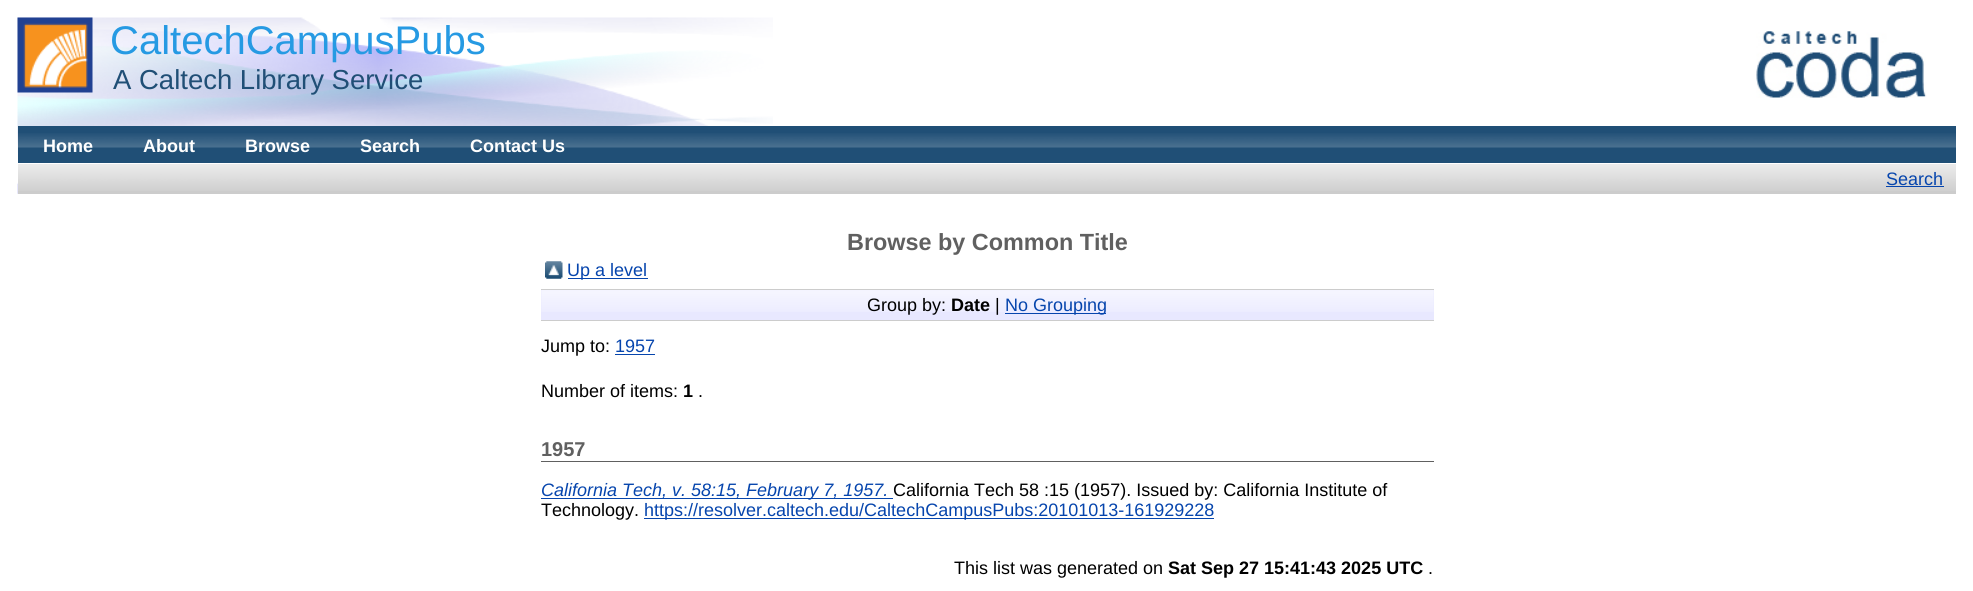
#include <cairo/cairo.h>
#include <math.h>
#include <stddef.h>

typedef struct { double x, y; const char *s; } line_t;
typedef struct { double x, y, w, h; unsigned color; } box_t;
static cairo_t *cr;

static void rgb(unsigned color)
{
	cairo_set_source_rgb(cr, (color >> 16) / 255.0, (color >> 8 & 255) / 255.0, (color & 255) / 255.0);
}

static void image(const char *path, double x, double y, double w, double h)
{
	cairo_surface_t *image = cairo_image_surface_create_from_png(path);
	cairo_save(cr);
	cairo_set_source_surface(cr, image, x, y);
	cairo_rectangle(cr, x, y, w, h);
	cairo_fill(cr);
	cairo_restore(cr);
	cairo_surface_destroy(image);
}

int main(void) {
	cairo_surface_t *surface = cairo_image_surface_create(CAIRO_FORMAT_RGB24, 1973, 591);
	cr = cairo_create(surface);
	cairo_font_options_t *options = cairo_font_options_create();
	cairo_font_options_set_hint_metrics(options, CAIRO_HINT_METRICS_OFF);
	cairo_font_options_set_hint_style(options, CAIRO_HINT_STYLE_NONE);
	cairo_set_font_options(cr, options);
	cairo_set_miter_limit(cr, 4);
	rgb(0xffffff);
	cairo_paint(cr);
	image("img/1.png", 17, 17, 756, 177);
	image("img/2.png", 17, 17, 76, 76);
	image("img/3.png", 1756, 31, 171, 67);
	rgb(0x204f76);
	cairo_rectangle(cr, 18, 126, 1938, 37);
	cairo_fill(cr);
	image("img/4.png", 18, 133, 1938, 15);
	rgb(0xffffff);
	cairo_rectangle(cr, 322, 163, 426, 1);
	cairo_fill(cr);
	rgb(0xcccccc);
	cairo_rectangle(cr, 18, 164, 1938, 30);
	cairo_fill(cr);
	image("img/5.png", 18, 164, 1938, 27);
	rgb(0x0645ad);
	cairo_rectangle(cr, 1886, 186, 58, 1);
	cairo_fill(cr);
	image("img/6.png", 545, 261, 18, 18);
	cairo_rectangle(cr, 568, 278, 80, 1);
	cairo_fill(cr);
	rgb(0xe8e8ff);
	cairo_rectangle(cr, 541, 290, 893, 30);
	cairo_fill(cr);
	image("img/7.png", 541, 290, 893, 22);
	{
		static const box_t items[] = {
			{541, 289, 893, 1, 0xcccccc},
			{541, 320, 893, 1, 0xcccccc},
			{1005, 313, 101, 1, 0x0645ad},
			{615, 354, 40, 1, 0x0645ad},
			{541, 461, 893, 1, 0x606060},
			{541, 498, 352, 1, 0x0645ad},
			{644, 518, 570, 1, 0x0645ad},
		};
		for (size_t i = 0; i < sizeof items / sizeof *items; i++) {
			rgb(items[i].color);
			cairo_rectangle(cr, items[i].x, items[i].y, items[i].w, items[i].h);
			cairo_fill(cr);
		}
	}
	cairo_select_font_face(cr, "Liberation Sans", CAIRO_FONT_SLANT_NORMAL, CAIRO_FONT_WEIGHT_NORMAL);
	cairo_set_font_size(cr, 40);
	rgb(0x269ae3);
	cairo_move_to(cr, 110, 54);
	cairo_show_text(cr, "CaltechCampusPubs");
	cairo_set_font_size(cr, 27.5);
	rgb(0x204f76);
	cairo_move_to(cr, 113, 89);
	cairo_show_text(cr, "A Caltech Library Service");
	cairo_select_font_face(cr, "Liberation Sans", CAIRO_FONT_SLANT_NORMAL, CAIRO_FONT_WEIGHT_BOLD);
	cairo_set_font_size(cr, 18);
	rgb(0xffffff);
	{
		static const line_t items[] = {
			{43, 152, "Home"},
			{143, 152, "About"},
			{245, 152, "Browse"},
			{360, 152, "Search"},
			{470, 152, "Contact Us"},
		};
		for (size_t i = 0; i < sizeof items / sizeof *items; i++) {
			cairo_move_to(cr, items[i].x, items[i].y);
			cairo_show_text(cr, items[i].s);
		}
	}
	cairo_select_font_face(cr, "Liberation Sans", CAIRO_FONT_SLANT_NORMAL, CAIRO_FONT_WEIGHT_NORMAL);
	rgb(0x0645ad);
	cairo_move_to(cr, 1886, 185);
	cairo_show_text(cr, "Search");
	cairo_select_font_face(cr, "Liberation Sans", CAIRO_FONT_SLANT_NORMAL, CAIRO_FONT_WEIGHT_BOLD);
	cairo_set_font_size(cr, 23.4);
	rgb(0x606060);
	cairo_move_to(cr, 847, 250);
	cairo_show_text(cr, "Browse by Common Title");
	cairo_select_font_face(cr, "Liberation Sans", CAIRO_FONT_SLANT_NORMAL, CAIRO_FONT_WEIGHT_NORMAL);
	cairo_set_font_size(cr, 18);
	rgb(0x0645ad);
	cairo_move_to(cr, 567, 276);
	cairo_show_text(cr, "Up a level");
	rgb(0x000000);
	cairo_move_to(cr, 867, 311);
	cairo_show_text(cr, "Group by:");
	cairo_select_font_face(cr, "Liberation Sans", CAIRO_FONT_SLANT_NORMAL, CAIRO_FONT_WEIGHT_BOLD);
	cairo_move_to(cr, 951, 311);
	cairo_show_text(cr, "Date");
	cairo_select_font_face(cr, "Liberation Sans", CAIRO_FONT_SLANT_NORMAL, CAIRO_FONT_WEIGHT_NORMAL);
	cairo_move_to(cr, 995, 311);
	cairo_show_text(cr, "|");
	rgb(0x0645ad);
	cairo_move_to(cr, 1005, 311);
	cairo_show_text(cr, "No Grouping");
	rgb(0x000000);
	cairo_move_to(cr, 541, 352);
	cairo_show_text(cr, "Jump to:");
	rgb(0x0645ad);
	cairo_move_to(cr, 615, 352);
	cairo_show_text(cr, "1957");
	rgb(0x000000);
	cairo_move_to(cr, 541, 397);
	cairo_show_text(cr, "Number of items:");
	cairo_select_font_face(cr, "Liberation Sans", CAIRO_FONT_SLANT_NORMAL, CAIRO_FONT_WEIGHT_BOLD);
	cairo_move_to(cr, 683, 397);
	cairo_show_text(cr, "1");
	cairo_select_font_face(cr, "Liberation Sans", CAIRO_FONT_SLANT_NORMAL, CAIRO_FONT_WEIGHT_NORMAL);
	cairo_move_to(cr, 698, 397);
	cairo_show_text(cr, ".");
	cairo_select_font_face(cr, "Liberation Sans", CAIRO_FONT_SLANT_NORMAL, CAIRO_FONT_WEIGHT_BOLD);
	cairo_set_font_size(cr, 20);
	rgb(0x606060);
	cairo_move_to(cr, 541, 456);
	cairo_show_text(cr, "1957");
	cairo_select_font_face(cr, "Liberation Sans", CAIRO_FONT_SLANT_ITALIC, CAIRO_FONT_WEIGHT_NORMAL);
	cairo_set_font_size(cr, 18);
	rgb(0x0645ad);
	cairo_move_to(cr, 541, 496);
	cairo_show_text(cr, "California Tech, v. 58:15, February 7, 1957.");
	cairo_select_font_face(cr, "Liberation Sans", CAIRO_FONT_SLANT_NORMAL, CAIRO_FONT_WEIGHT_NORMAL);
	rgb(0x000000);
	cairo_move_to(cr, 893, 496);
	cairo_show_text(cr, "California Tech 58 :15 (1957). Issued by: California Institute of");
	cairo_move_to(cr, 541, 516);
	cairo_show_text(cr, "Technology.");
	rgb(0x0645ad);
	cairo_move_to(cr, 644, 516);
	cairo_show_text(cr, "https://resolver.caltech.edu/CaltechCampusPubs:20101013-161929228");
	rgb(0x000000);
	cairo_move_to(cr, 954, 574);
	cairo_show_text(cr, "This list was generated on");
	cairo_select_font_face(cr, "Liberation Sans", CAIRO_FONT_SLANT_NORMAL, CAIRO_FONT_WEIGHT_BOLD);
	cairo_move_to(cr, 1168, 574);
	cairo_show_text(cr, "Sat Sep 27 15:41:43 2025 UTC");
	cairo_select_font_face(cr, "Liberation Sans", CAIRO_FONT_SLANT_NORMAL, CAIRO_FONT_WEIGHT_NORMAL);
	cairo_move_to(cr, 1428, 574);
	cairo_show_text(cr, ".");
	cairo_surface_write_to_png(surface, "page.png");
	cairo_font_options_destroy(options);
	cairo_destroy(cr);
	cairo_surface_destroy(surface);
	return 0;
}
